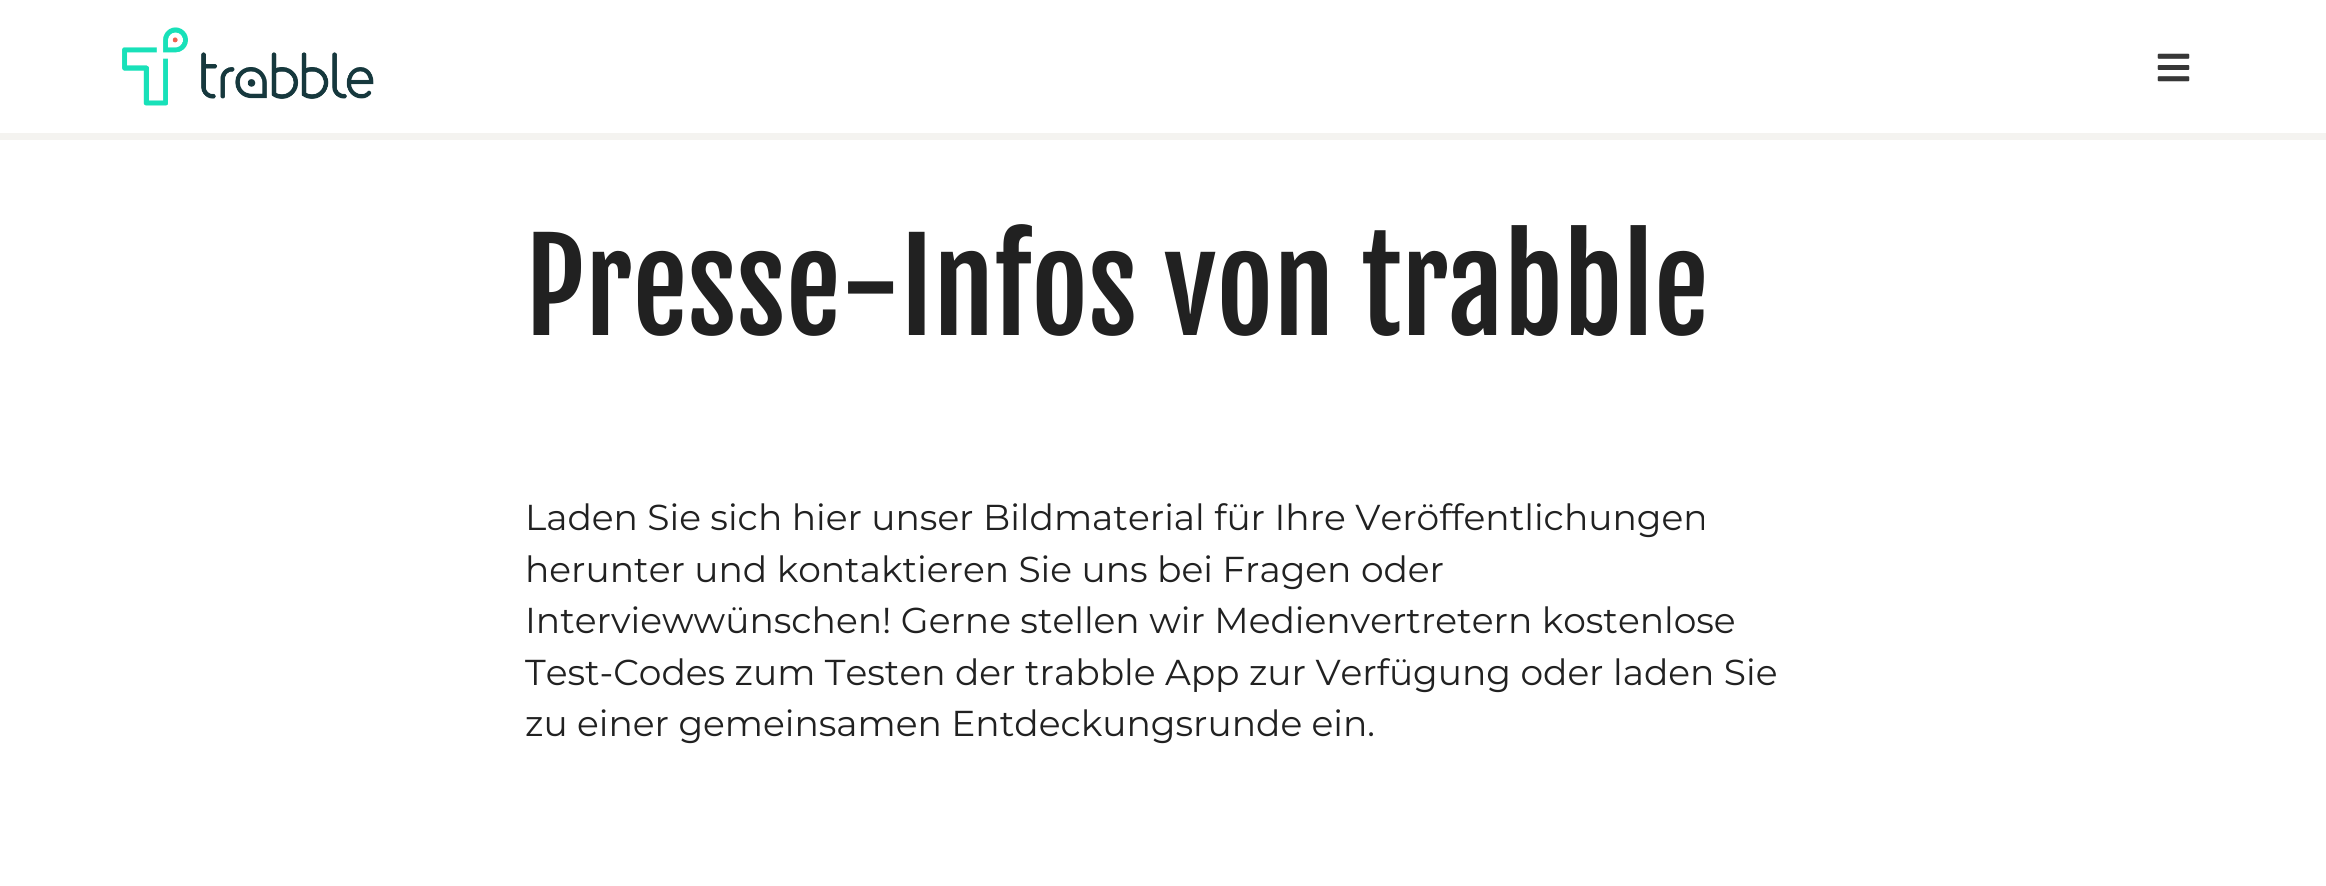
#include <cairo/cairo.h>
#include <math.h>
#include <stddef.h>

typedef struct { double x, y; const char *s; } line_t;
static cairo_t *cr;

static void rgb(unsigned color)
{
	cairo_set_source_rgb(cr, (color >> 16) / 255.0, (color >> 8 & 255) / 255.0, (color & 255) / 255.0);
}

static void image(const char *path, double x, double y, double w, double h)
{
	cairo_surface_t *image = cairo_image_surface_create_from_png(path);
	cairo_save(cr);
	cairo_set_source_surface(cr, image, x, y);
	cairo_rectangle(cr, x, y, w, h);
	cairo_fill(cr);
	cairo_restore(cr);
	cairo_surface_destroy(image);
}

int main(void) {
	cairo_surface_t *surface = cairo_image_surface_create(CAIRO_FORMAT_RGB24, 2326, 886);
	cr = cairo_create(surface);
	cairo_font_options_t *options = cairo_font_options_create();
	cairo_font_options_set_hint_metrics(options, CAIRO_HINT_METRICS_OFF);
	cairo_font_options_set_hint_style(options, CAIRO_HINT_STYLE_NONE);
	cairo_set_font_options(cr, options);
	cairo_set_miter_limit(cr, 4);
	rgb(0xffffff);
	cairo_paint(cr);
	rgb(0xf4f3f0);
	cairo_rectangle(cr, 0, 133, 2326, 7);
	cairo_fill(cr);
	image("img/1.png", 122, 27, 252, 79);
	image("img/2.png", 2157, 53, 33, 29);
	cairo_select_font_face(cr, "Fjalla One", CAIRO_FONT_SLANT_NORMAL, CAIRO_FONT_WEIGHT_NORMAL);
	cairo_set_font_size(cr, 123.75);
	rgb(0x212121);
	cairo_move_to(cr, 525, 335);
	cairo_show_text(cr, "Presse-Infos von trabble");
	cairo_select_font_face(cr, "Montserrat", CAIRO_FONT_SLANT_NORMAL, CAIRO_FONT_WEIGHT_NORMAL);
	cairo_set_font_size(cr, 36);
	{
		static const line_t items[] = {
			{525, 530, "Laden Sie sich hier unser Bildmaterial für Ihre Veröffentlichungen"},
			{525, 582, "herunter und kontaktieren Sie uns bei Fragen oder"},
			{525, 633, "Interviewwünschen! Gerne stellen wir Medienvertretern kostenlose"},
			{525, 685, "Test-Codes zum Testen der trabble App zur Verfügung oder laden Sie"},
			{525, 736, "zu einer gemeinsamen Entdeckungsrunde ein."},
		};
		for (size_t i = 0; i < sizeof items / sizeof *items; i++) {
			cairo_move_to(cr, items[i].x, items[i].y);
			cairo_show_text(cr, items[i].s);
		}
	}
	cairo_surface_write_to_png(surface, "page.png");
	cairo_font_options_destroy(options);
	cairo_destroy(cr);
	cairo_surface_destroy(surface);
	return 0;
}
